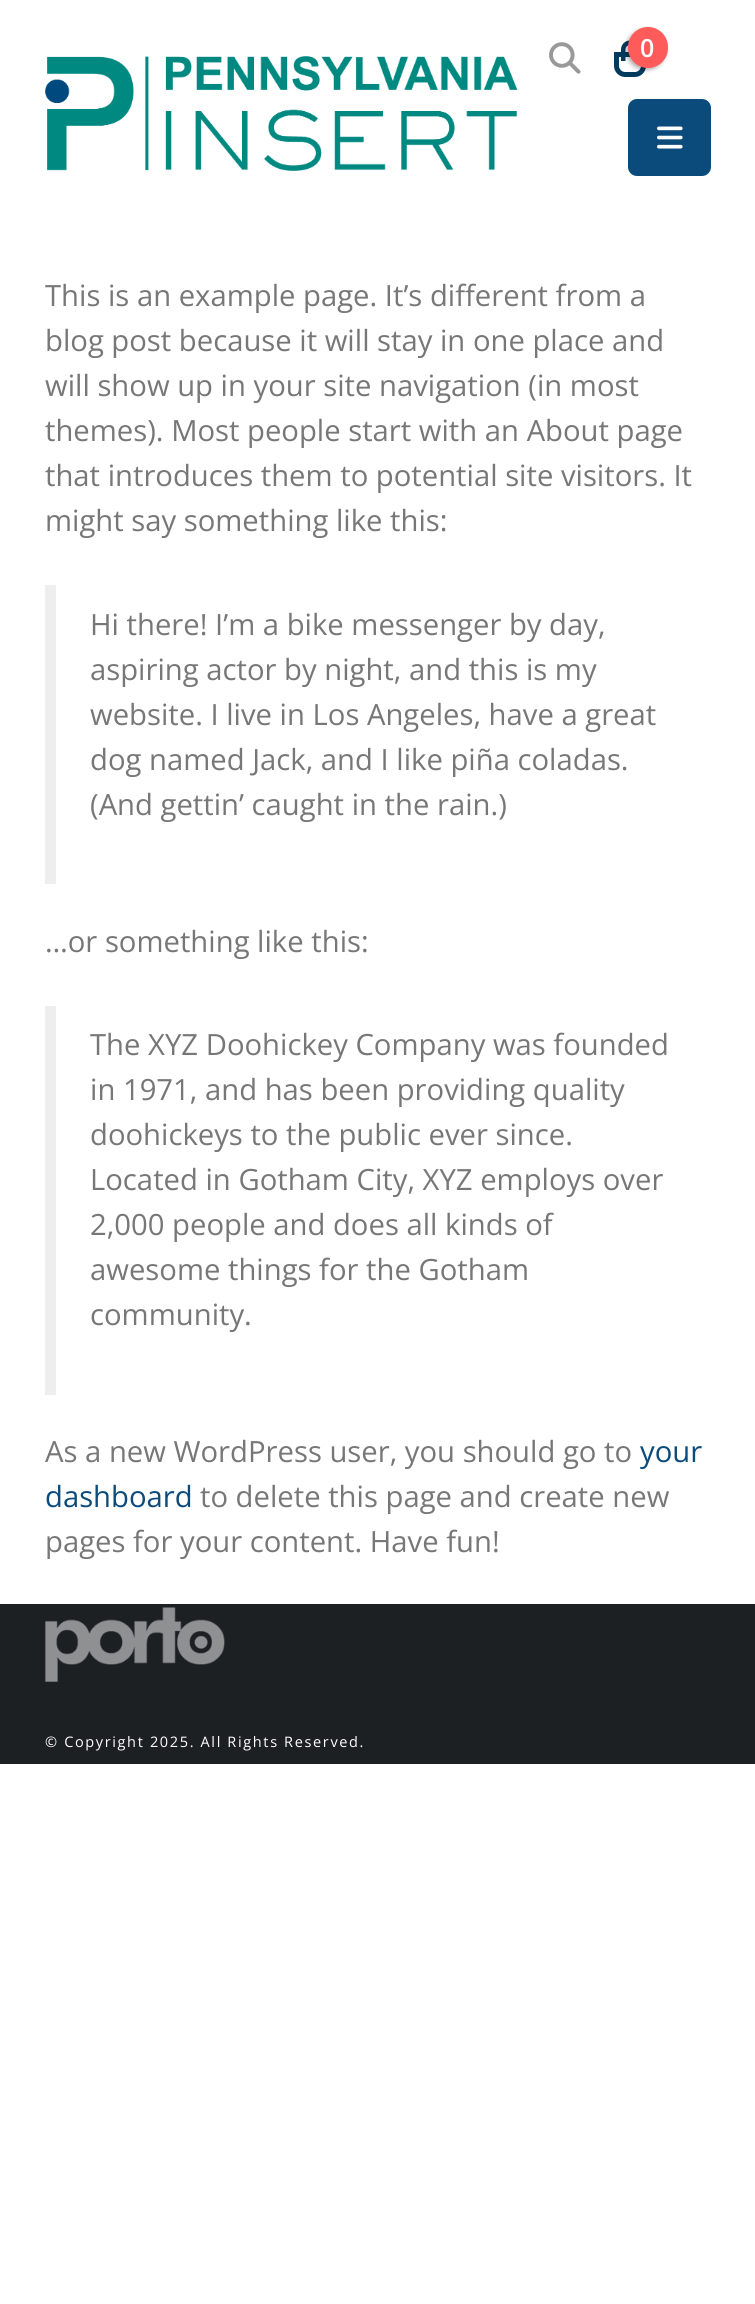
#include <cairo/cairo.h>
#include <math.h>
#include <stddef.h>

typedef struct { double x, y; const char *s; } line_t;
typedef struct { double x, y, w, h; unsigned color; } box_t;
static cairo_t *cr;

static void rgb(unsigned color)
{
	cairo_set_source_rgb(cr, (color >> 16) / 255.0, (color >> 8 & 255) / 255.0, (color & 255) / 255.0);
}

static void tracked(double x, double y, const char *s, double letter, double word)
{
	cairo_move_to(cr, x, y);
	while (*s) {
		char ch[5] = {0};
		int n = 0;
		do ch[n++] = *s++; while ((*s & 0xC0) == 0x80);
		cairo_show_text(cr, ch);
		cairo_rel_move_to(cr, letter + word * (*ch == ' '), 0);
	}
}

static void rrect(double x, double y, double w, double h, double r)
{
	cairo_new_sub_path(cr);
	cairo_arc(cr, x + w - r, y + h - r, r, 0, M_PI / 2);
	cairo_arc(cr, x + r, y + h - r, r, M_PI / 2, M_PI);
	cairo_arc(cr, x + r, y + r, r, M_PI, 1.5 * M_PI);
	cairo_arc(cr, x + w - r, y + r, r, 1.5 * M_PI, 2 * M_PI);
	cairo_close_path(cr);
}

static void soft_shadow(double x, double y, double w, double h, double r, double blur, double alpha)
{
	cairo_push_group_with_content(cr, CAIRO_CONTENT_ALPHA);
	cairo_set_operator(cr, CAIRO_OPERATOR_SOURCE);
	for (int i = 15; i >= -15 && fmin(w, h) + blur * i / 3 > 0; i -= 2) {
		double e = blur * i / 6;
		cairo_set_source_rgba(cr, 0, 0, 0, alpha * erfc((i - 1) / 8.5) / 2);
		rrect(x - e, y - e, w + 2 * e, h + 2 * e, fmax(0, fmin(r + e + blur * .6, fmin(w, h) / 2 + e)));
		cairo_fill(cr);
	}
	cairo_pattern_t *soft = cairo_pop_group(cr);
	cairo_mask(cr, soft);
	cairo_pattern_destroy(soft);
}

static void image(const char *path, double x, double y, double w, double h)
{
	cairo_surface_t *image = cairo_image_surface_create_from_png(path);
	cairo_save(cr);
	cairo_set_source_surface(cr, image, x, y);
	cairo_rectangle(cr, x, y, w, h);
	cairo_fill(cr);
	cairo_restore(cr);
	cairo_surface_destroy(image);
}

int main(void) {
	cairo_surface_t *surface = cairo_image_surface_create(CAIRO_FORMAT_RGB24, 755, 2304);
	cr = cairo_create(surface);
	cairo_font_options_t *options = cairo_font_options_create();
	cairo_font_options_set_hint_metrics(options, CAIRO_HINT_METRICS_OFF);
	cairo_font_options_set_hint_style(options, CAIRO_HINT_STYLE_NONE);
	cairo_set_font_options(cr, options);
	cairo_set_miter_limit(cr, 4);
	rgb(0xffffff);
	cairo_paint(cr);
	image("img/1.png", 549, 42, 32, 32);
	cairo_new_path(cr);
	cairo_move_to(cr, 616.5, 54.5);
	cairo_line_to(cr, 643.5, 54.5);
	cairo_line_to(cr, 643.5, 66);
	cairo_curve_to(cr, 643.5, 70.5, 639.5, 74.5, 635, 74.5);
	cairo_line_to(cr, 625, 74.5);
	cairo_curve_to(cr, 620.5, 74.5, 616.5, 70.5, 616.5, 66);
	cairo_close_path(cr);
	rgb(0x003b5e);
	cairo_set_line_width(cr, 5);
	cairo_stroke(cr);
	cairo_set_fill_rule(cr, CAIRO_FILL_RULE_EVEN_ODD);
	cairo_new_path(cr);
	cairo_move_to(cr, 630, 40.5);
	cairo_curve_to(cr, 635, 40.5, 639, 44.5, 639, 49.5);
	cairo_line_to(cr, 639, 61);
	cairo_line_to(cr, 621, 61);
	cairo_line_to(cr, 621, 49.5);
	cairo_curve_to(cr, 621, 44.5, 625, 40.5, 630, 40.5);
	cairo_close_path(cr);
	cairo_move_to(cr, 630, 45);
	cairo_curve_to(cr, 632.5, 45, 634.5, 47, 634.5, 49.5);
	cairo_line_to(cr, 634.5, 61);
	cairo_line_to(cr, 625.5, 61);
	cairo_line_to(cr, 625.5, 49.5);
	cairo_curve_to(cr, 625.5, 47, 627.5, 45, 630, 45);
	cairo_close_path(cr);
	cairo_fill(cr);
	rgb(0x000000);
	soft_shadow(626, 29, 40, 41, 20, 2, 0.3);
	rgb(0xff5b5b);
	rrect(628, 27, 40, 41, 20);
	cairo_fill(cr);
	rgb(0x0b4b7c);
	rrect(628, 99, 83, 77, 9);
	cairo_fill(cr);
	image("img/2.png", 657, 126, 26, 23);
	image("img/3.png", 45, 56, 473, 115);
	{
		static const box_t items[] = {
			{45, 585, 11, 299, 0xeeeeee},
			{45, 1006, 11, 389, 0xeeeeee},
			{0, 1604, 755, 160, 0x1c2023},
		};
		for (size_t i = 0; i < sizeof items / sizeof *items; i++) {
			rgb(items[i].color);
			cairo_rectangle(cr, items[i].x, items[i].y, items[i].w, items[i].h);
			cairo_fill(cr);
		}
	}
	image("img/4.png", 45, 1607, 180, 75);
	cairo_select_font_face(cr, "Open Sans SemiBold", CAIRO_FONT_SLANT_NORMAL, CAIRO_FONT_WEIGHT_NORMAL);
	cairo_set_font_size(cr, 25);
	rgb(0xffffff);
	cairo_move_to(cr, 640, 57);
	cairo_show_text(cr, "0");
	cairo_select_font_face(cr, "Open Sans", CAIRO_FONT_SLANT_NORMAL, CAIRO_FONT_WEIGHT_NORMAL);
	cairo_set_font_size(cr, 29.25);
	rgb(0x777777);
	{
		static const line_t items[] = {
			{45, 306, "This is an example page. It’s different from a"},
			{45, 351, "blog post because it will stay in one place and"},
			{45, 396, "will show up in your site navigation (in most"},
			{45, 441, "themes). Most people start with an About page"},
			{45, 486, "that introduces them to potential site visitors. It"},
			{45, 531, "might say something like this:"},
			{90, 635, "Hi there! I’m a bike messenger by day,"},
			{90, 680, "aspiring actor by night, and this is my"},
			{90, 725, "website. I live in Los Angeles, have a great"},
			{90, 770, "dog named Jack, and I like piña coladas."},
			{90, 815, "(And gettin’ caught in the rain.)"},
			{45, 952, "…or something like this:"},
			{90, 1055, "The XYZ Doohickey Company was founded"},
			{90, 1100, "in 1971, and has been providing quality"},
			{90, 1145, "doohickeys to the public ever since."},
			{90, 1190, "Located in Gotham City, XYZ employs over"},
			{90, 1235, "2,000 people and does all kinds of"},
			{90, 1280, "awesome things for the Gotham"},
			{90, 1325, "community."},
			{45, 1462, "As a new WordPress user, you should go to"},
		};
		for (size_t i = 0; i < sizeof items / sizeof *items; i++) {
			cairo_move_to(cr, items[i].x, items[i].y);
			cairo_show_text(cr, items[i].s);
		}
	}
	rgb(0x0b4b7c);
	cairo_move_to(cr, 640, 1462);
	cairo_show_text(cr, "your");
	cairo_move_to(cr, 45, 1507);
	cairo_show_text(cr, "dashboard");
	rgb(0x777777);
	cairo_move_to(cr, 200, 1507);
	cairo_show_text(cr, "to delete this page and create new");
	cairo_move_to(cr, 45, 1552);
	cairo_show_text(cr, "pages for your content. Have fun!");
	cairo_set_font_size(cr, 14.5);
	rgb(0xffffff);
	tracked(45, 1747, "© Copyright 2025. All Rights Reserved.", 1.65, 0);
	cairo_surface_write_to_png(surface, "page.png");
	cairo_font_options_destroy(options);
	cairo_destroy(cr);
	cairo_surface_destroy(surface);
	return 0;
}
